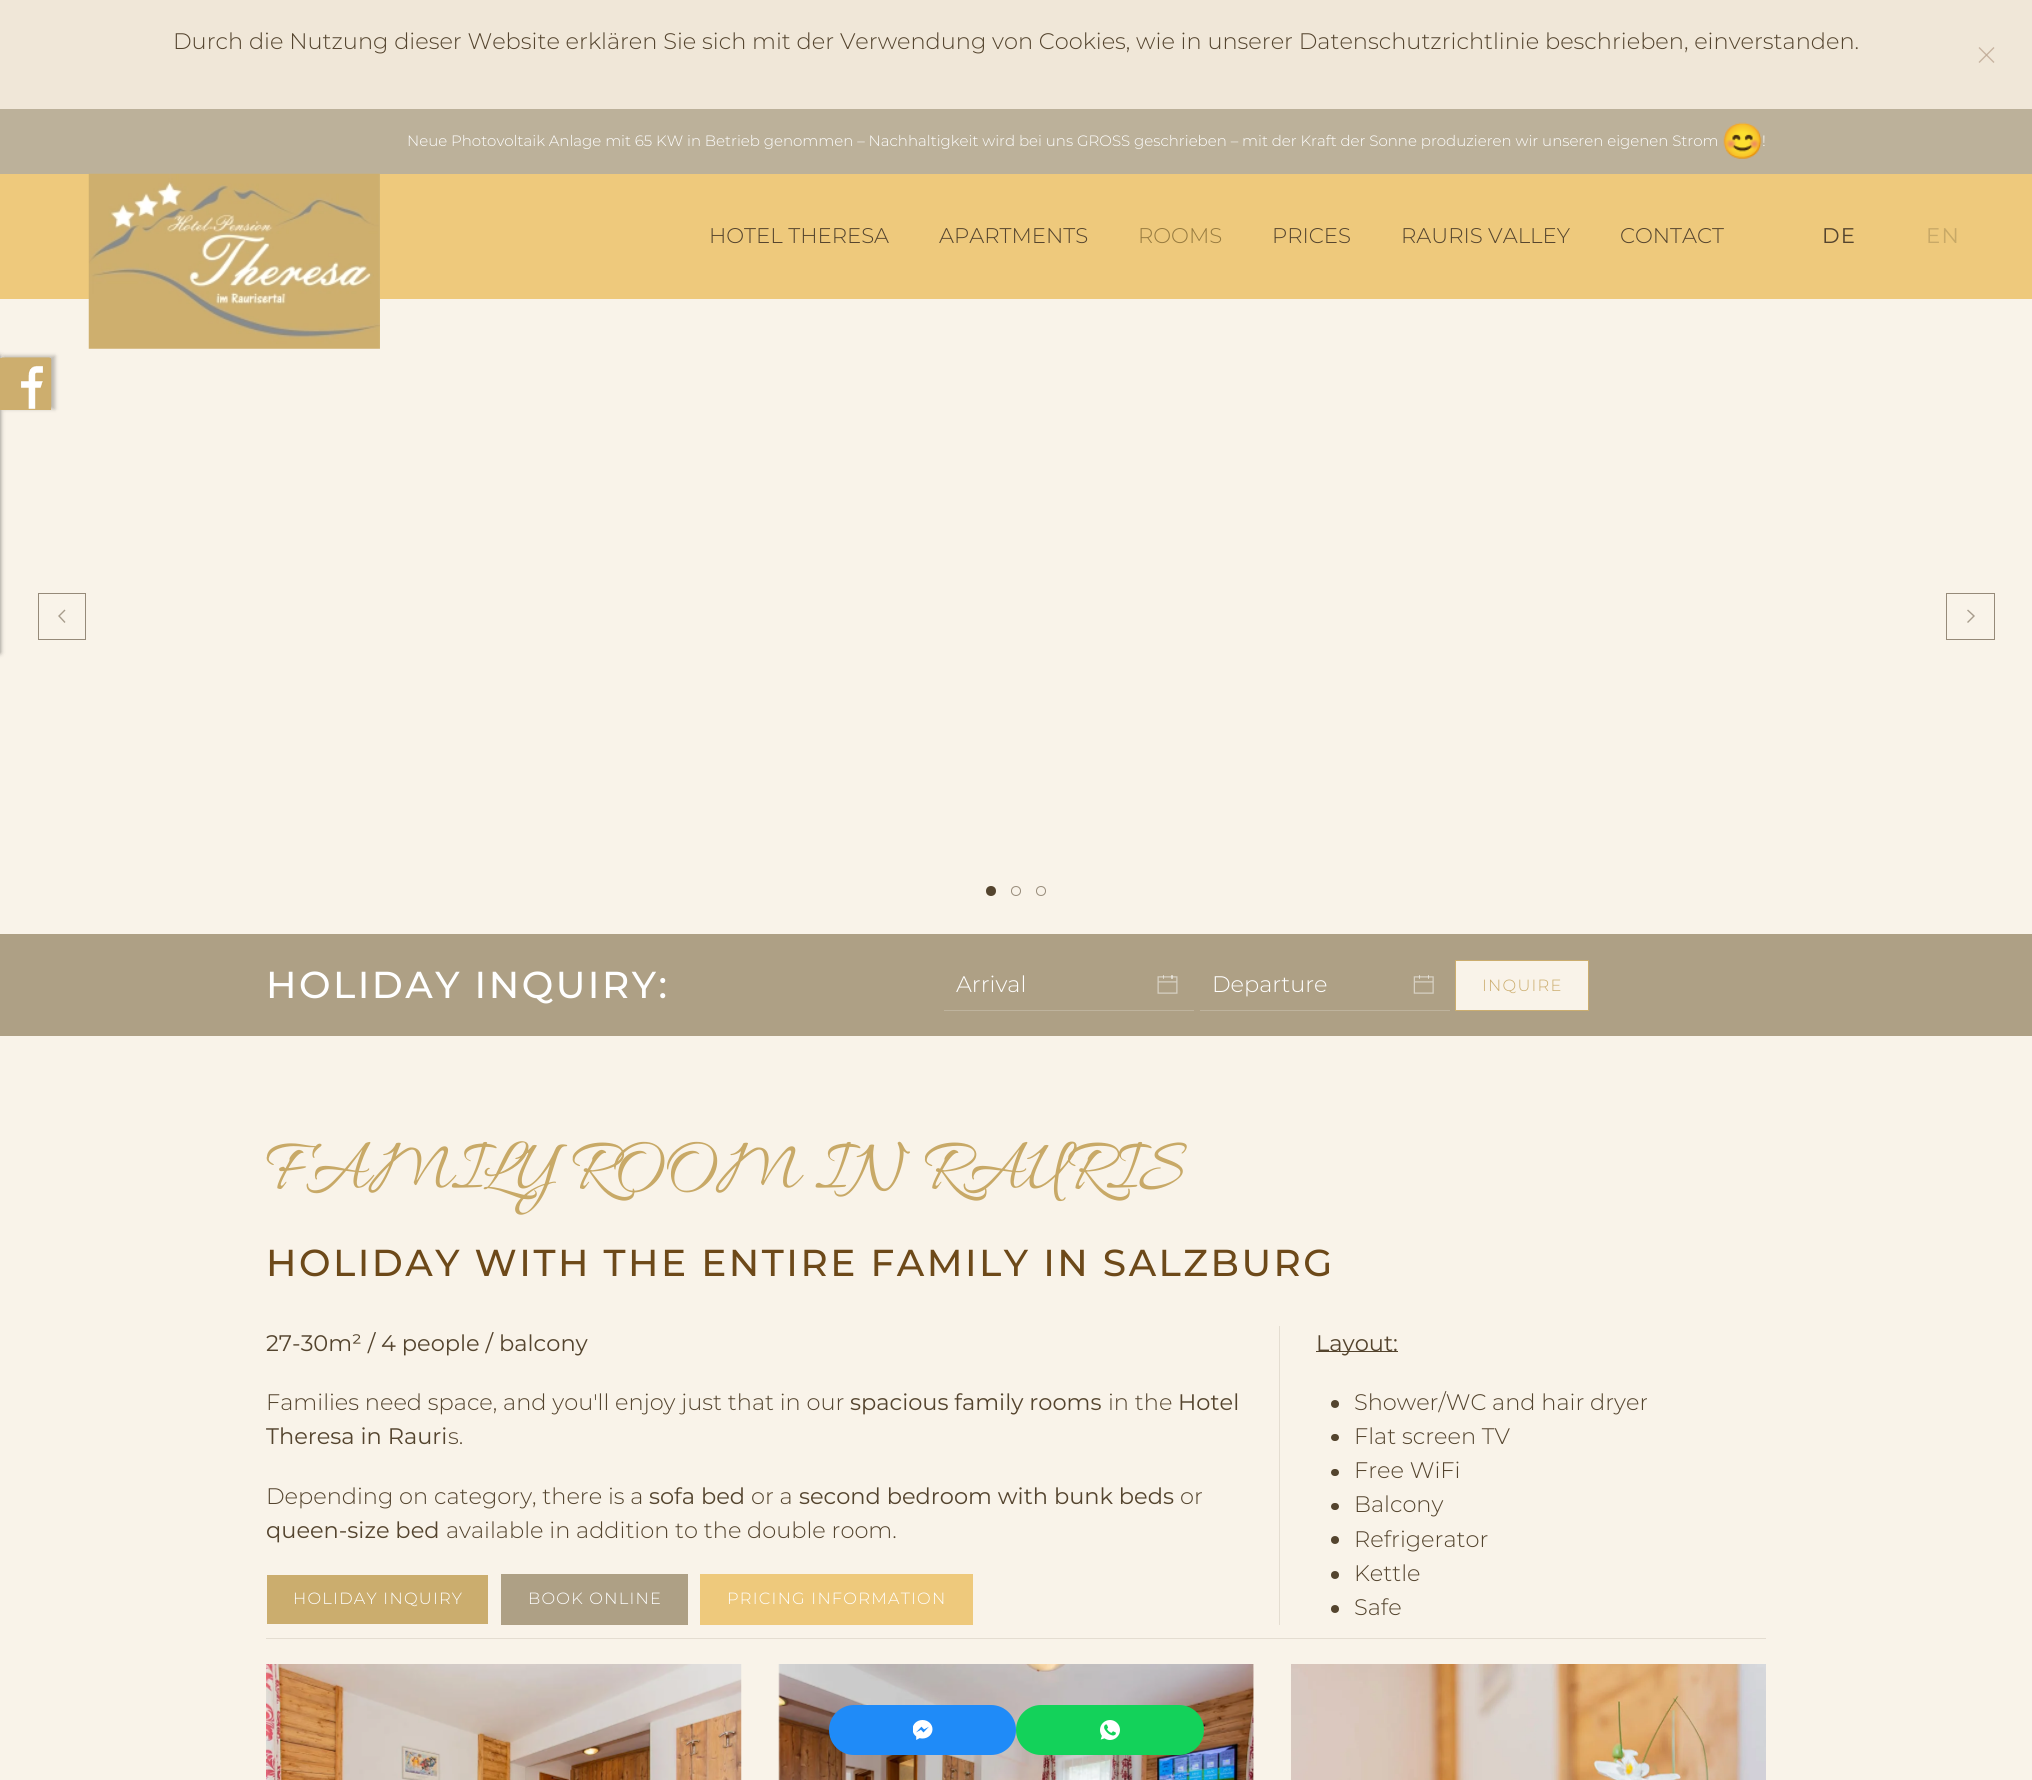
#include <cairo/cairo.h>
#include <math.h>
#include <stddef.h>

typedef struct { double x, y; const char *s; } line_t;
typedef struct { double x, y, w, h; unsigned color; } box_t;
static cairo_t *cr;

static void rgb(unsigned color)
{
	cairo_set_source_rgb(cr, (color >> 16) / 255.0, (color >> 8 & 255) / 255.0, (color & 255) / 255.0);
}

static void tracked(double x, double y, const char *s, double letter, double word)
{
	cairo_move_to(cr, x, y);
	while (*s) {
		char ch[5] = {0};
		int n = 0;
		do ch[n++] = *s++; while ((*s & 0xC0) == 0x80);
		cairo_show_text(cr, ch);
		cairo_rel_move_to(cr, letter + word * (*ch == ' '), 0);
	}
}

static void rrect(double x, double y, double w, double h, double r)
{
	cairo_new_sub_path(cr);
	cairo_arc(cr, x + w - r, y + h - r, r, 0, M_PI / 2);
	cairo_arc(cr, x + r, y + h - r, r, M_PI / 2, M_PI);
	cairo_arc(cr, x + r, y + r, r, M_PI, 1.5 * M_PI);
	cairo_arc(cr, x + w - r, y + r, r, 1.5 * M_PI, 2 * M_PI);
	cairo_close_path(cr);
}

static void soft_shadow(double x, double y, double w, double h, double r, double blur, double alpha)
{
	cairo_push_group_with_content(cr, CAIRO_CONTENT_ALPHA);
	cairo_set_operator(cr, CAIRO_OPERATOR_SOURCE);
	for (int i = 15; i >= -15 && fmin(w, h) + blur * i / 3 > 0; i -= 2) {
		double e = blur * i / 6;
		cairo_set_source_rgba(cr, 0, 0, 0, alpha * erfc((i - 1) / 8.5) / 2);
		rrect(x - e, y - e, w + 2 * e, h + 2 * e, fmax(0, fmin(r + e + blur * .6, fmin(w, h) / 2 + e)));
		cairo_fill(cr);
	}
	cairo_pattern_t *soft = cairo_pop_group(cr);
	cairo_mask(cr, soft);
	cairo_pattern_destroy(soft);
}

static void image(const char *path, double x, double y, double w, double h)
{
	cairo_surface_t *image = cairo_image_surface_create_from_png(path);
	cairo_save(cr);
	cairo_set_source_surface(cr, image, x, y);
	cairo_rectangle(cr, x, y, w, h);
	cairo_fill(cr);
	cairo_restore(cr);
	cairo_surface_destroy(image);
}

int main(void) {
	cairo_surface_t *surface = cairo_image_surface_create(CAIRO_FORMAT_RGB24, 2032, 1780);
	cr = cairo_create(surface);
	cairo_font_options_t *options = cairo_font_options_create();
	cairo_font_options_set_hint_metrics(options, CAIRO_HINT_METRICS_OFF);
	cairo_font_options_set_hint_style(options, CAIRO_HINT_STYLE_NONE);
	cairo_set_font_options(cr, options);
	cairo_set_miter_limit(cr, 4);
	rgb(0xf9f3e9);
	cairo_paint(cr);
	rgb(0xf0e7d8);
	cairo_rectangle(cr, 0, 0, 2032, 109);
	cairo_fill(cr);
	cairo_new_path(cr);
	cairo_move_to(cr, 1979, 47.5);
	cairo_line_to(cr, 1994, 62.5);
	rgb(0xc7b4a1);
	cairo_set_line_width(cr, 1.4);
	cairo_stroke(cr);
	cairo_new_path(cr);
	cairo_move_to(cr, 1994, 47.5);
	cairo_line_to(cr, 1979, 62.5);
	cairo_set_source_rgba(cr, 0.741, 0.655, 0.576, 0.8);
	cairo_stroke(cr);
	rgb(0x000000);
	soft_shadow(-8, 356, 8, 297, 0, 2.5, 0.5);
	soft_shadow(4, 356, 51, 53, 0, 2, 0.25);
	rgb(0xcdae6e);
	cairo_rectangle(cr, 0, 358, 51, 52);
	cairo_fill(cr);
	image("img/1.png", 1, 357, 51, 52);
	rgb(0xbcb19a);
	cairo_rectangle(cr, 0, 109, 2032, 65);
	cairo_fill(cr);
	image("img/2.png", 1723, 122, 39, 37);
	rgb(0xeec97c);
	cairo_rectangle(cr, 0, 174, 2032, 125);
	cairo_fill(cr);
	image("img/3.png", 88, 173, 292, 176);
	cairo_rectangle(cr, 38.5, 593.5, 47, 46);
	rgb(0x968a79);
	cairo_set_line_width(cr, 1);
	cairo_stroke(cr);
	cairo_new_path(cr);
	cairo_move_to(cr, 65, 610);
	cairo_line_to(cr, 59, 616);
	cairo_line_to(cr, 65, 622.5);
	rgb(0xa79c8c);
	cairo_set_line_width(cr, 1.4);
	cairo_stroke(cr);
	cairo_rectangle(cr, 1946.5, 593.5, 48, 46);
	rgb(0x968a79);
	cairo_set_line_width(cr, 1);
	cairo_stroke(cr);
	cairo_new_path(cr);
	cairo_move_to(cr, 1967.5, 622.5);
	cairo_line_to(cr, 1974, 616);
	cairo_line_to(cr, 1967.5, 610);
	rgb(0xa79c8c);
	cairo_set_line_width(cr, 1.4);
	cairo_stroke(cr);
	rgb(0x54442e);
	cairo_arc(cr, 991, 891, 5, 0, 2 * M_PI);
	cairo_fill(cr);
	cairo_arc(cr, 1016, 891, 4.5, 0, 2 * M_PI);
	rgb(0x968a79);
	cairo_set_line_width(cr, 1);
	cairo_stroke(cr);
	cairo_arc(cr, 1041, 891, 4.5, 0, 2 * M_PI);
	cairo_stroke(cr);
	rgb(0xaea085);
	cairo_rectangle(cr, 0, 934, 2032, 102);
	cairo_fill(cr);
	rgb(0xbeb39d);
	cairo_rectangle(cr, 944, 1010, 250, 1);
	cairo_fill(cr);
	image("img/4.png", 1157, 975, 21, 19);
	cairo_rectangle(cr, 1200, 1010, 250, 1);
	cairo_fill(cr);
	image("img/5.png", 1413, 975, 21, 19);
	rgb(0xf9f3e9);
	cairo_rectangle(cr, 1455.5, 960.5, 133, 50);
	cairo_fill_preserve(cr);
	rgb(0xcbad6e);
	cairo_stroke(cr);
	{
		static const box_t items[] = {
			{267, 1575, 221, 49, 0xcbad6e},
			{501, 1574, 187, 51, 0xaea085},
			{700, 1574, 273, 51, 0xeec97c},
			{1279, 1326, 1, 299, 0xe4ddd1},
			{1316, 1351, 82, 1, 0x54442e},
		};
		for (size_t i = 0; i < sizeof items / sizeof *items; i++) {
			rgb(items[i].color);
			cairo_rectangle(cr, items[i].x, items[i].y, items[i].w, items[i].h);
			cairo_fill(cr);
		}
	}
	cairo_arc(cr, 1335, 1404, 4, 0, 2 * M_PI);
	cairo_fill(cr);
	rrect(1331, 1434, 8, 7, 3.5);
	cairo_fill(cr);
	rrect(1331, 1469, 8, 7, 3.5);
	cairo_fill(cr);
	rrect(1331, 1503, 8, 7, 3.5);
	cairo_fill(cr);
	cairo_arc(cr, 1335, 1540, 4, 0, 2 * M_PI);
	cairo_fill(cr);
	cairo_arc(cr, 1335, 1575, 4, 0, 2 * M_PI);
	cairo_fill(cr);
	cairo_arc(cr, 1335, 1609, 4, 0, 2 * M_PI);
	cairo_fill(cr);
	rgb(0xe4ddd1);
	cairo_rectangle(cr, 266, 1638, 1500, 1);
	cairo_fill(cr);
	image("img/6.png", 266, 1664, 476, 116);
	image("img/7.png", 778, 1664, 476, 116);
	image("img/8.png", 1291, 1664, 475, 116);
	rgb(0x1f8bf8);
	rrect(829, 1705, 187, 50, 25);
	cairo_fill(cr);
	image("img/9.png", 913, 1720, 20, 20);
	rgb(0x13d25a);
	rrect(1016, 1705, 188, 50, 25);
	cairo_fill(cr);
	image("img/10.png", 1100, 1720, 20, 20);
	cairo_select_font_face(cr, "Montserrat Light", CAIRO_FONT_SLANT_NORMAL, CAIRO_FONT_WEIGHT_NORMAL);
	cairo_set_font_size(cr, 22.5);
	rgb(0x54442e);
	cairo_move_to(cr, 173, 49);
	cairo_show_text(cr, "Durch die Nutzung dieser Website erklären Sie sich mit der Verwendung von Cookies, wie in unserer Datenschutzrichtlinie beschrieben, einverstanden.");
	cairo_set_font_size(cr, 15);
	rgb(0xffffff);
	cairo_move_to(cr, 407, 146);
	cairo_show_text(cr, "Neue Photovoltaik Anlage mit 65 KW in Betrieb genommen – Nachhaltigkeit wird bei uns GROSS geschrieben – mit der Kraft der Sonne produzieren wir unseren eigenen Strom");
	cairo_move_to(cr, 1762, 146);
	cairo_show_text(cr, "!");
	cairo_set_font_size(cr, 21.25);
	rgb(0x54442e);
	cairo_move_to(cr, 709, 243);
	cairo_show_text(cr, "HOTEL THERESA");
	cairo_move_to(cr, 939, 243);
	cairo_show_text(cr, "APARTMENTS");
	rgb(0x977b40);
	cairo_move_to(cr, 1138, 243);
	cairo_show_text(cr, "ROOMS");
	rgb(0x54442e);
	{
		static const line_t items[] = {
			{1272, 243, "PRICES"},
			{1401, 243, "RAURIS VALLEY"},
			{1620, 243, "CONTACT"},
		};
		for (size_t i = 0; i < sizeof items / sizeof *items; i++) {
			cairo_move_to(cr, items[i].x, items[i].y);
			cairo_show_text(cr, items[i].s);
		}
	}
	cairo_select_font_face(cr, "Montserrat", CAIRO_FONT_SLANT_NORMAL, CAIRO_FONT_WEIGHT_NORMAL);
	tracked(1822, 243, "DE", 1.25, 0);
	rgb(0xc8a967);
	tracked(1926, 243, "EN", 1.25, 0);
	cairo_select_font_face(cr, "Montserrat Medium", CAIRO_FONT_SLANT_NORMAL, CAIRO_FONT_WEIGHT_NORMAL);
	cairo_set_font_size(cr, 37.5);
	rgb(0xffffff);
	tracked(266, 998, "HOLIDAY INQUIRY:", 2.5, 0);
	cairo_select_font_face(cr, "Montserrat Light", CAIRO_FONT_SLANT_NORMAL, CAIRO_FONT_WEIGHT_NORMAL);
	cairo_set_font_size(cr, 22.5);
	cairo_move_to(cr, 956, 992);
	cairo_show_text(cr, "Arrival");
	cairo_move_to(cr, 1212, 992);
	cairo_show_text(cr, "Departure");
	cairo_set_font_size(cr, 16.25);
	rgb(0xcbad6e);
	tracked(1482, 991, "INQUIRE", 1.25, 0);
	cairo_select_font_face(cr, "Allura", CAIRO_FONT_SLANT_NORMAL, CAIRO_FONT_WEIGHT_NORMAL);
	cairo_set_font_size(cr, 75);
	rgb(0xc8a967);
	cairo_move_to(cr, 266, 1187);
	cairo_show_text(cr, "FAMILY ROOM IN RAURIS");
	cairo_select_font_face(cr, "Montserrat Medium", CAIRO_FONT_SLANT_NORMAL, CAIRO_FONT_WEIGHT_NORMAL);
	cairo_set_font_size(cr, 37.5);
	rgb(0x6d4919);
	tracked(266, 1276, "HOLIDAY WITH THE ENTIRE FAMILY IN SALZBURG", 2.5, 0);
	cairo_select_font_face(cr, "Montserrat", CAIRO_FONT_SLANT_NORMAL, CAIRO_FONT_WEIGHT_NORMAL);
	cairo_set_font_size(cr, 22.5);
	rgb(0x54442e);
	cairo_move_to(cr, 266, 1351);
	cairo_show_text(cr, "27-30m² / 4 people / balcony");
	cairo_select_font_face(cr, "Montserrat Light", CAIRO_FONT_SLANT_NORMAL, CAIRO_FONT_WEIGHT_NORMAL);
	cairo_move_to(cr, 266, 1410);
	cairo_show_text(cr, "Families need space, and you'll enjoy just that in our");
	cairo_select_font_face(cr, "Montserrat", CAIRO_FONT_SLANT_NORMAL, CAIRO_FONT_WEIGHT_NORMAL);
	cairo_move_to(cr, 850, 1410);
	cairo_show_text(cr, "spacious family rooms");
	cairo_select_font_face(cr, "Montserrat Light", CAIRO_FONT_SLANT_NORMAL, CAIRO_FONT_WEIGHT_NORMAL);
	cairo_move_to(cr, 1108, 1410);
	cairo_show_text(cr, "in the");
	cairo_select_font_face(cr, "Montserrat", CAIRO_FONT_SLANT_NORMAL, CAIRO_FONT_WEIGHT_NORMAL);
	cairo_move_to(cr, 1178, 1410);
	cairo_show_text(cr, "Hotel");
	cairo_move_to(cr, 266, 1444);
	cairo_show_text(cr, "Theresa in Rauri");
	cairo_select_font_face(cr, "Montserrat Light", CAIRO_FONT_SLANT_NORMAL, CAIRO_FONT_WEIGHT_NORMAL);
	cairo_move_to(cr, 448, 1444);
	cairo_show_text(cr, "s.");
	cairo_move_to(cr, 266, 1504);
	cairo_show_text(cr, "Depending on category, there is a");
	cairo_select_font_face(cr, "Montserrat", CAIRO_FONT_SLANT_NORMAL, CAIRO_FONT_WEIGHT_NORMAL);
	cairo_move_to(cr, 649, 1504);
	cairo_show_text(cr, "sofa bed");
	cairo_select_font_face(cr, "Montserrat Light", CAIRO_FONT_SLANT_NORMAL, CAIRO_FONT_WEIGHT_NORMAL);
	cairo_move_to(cr, 751, 1504);
	cairo_show_text(cr, "or a");
	cairo_select_font_face(cr, "Montserrat", CAIRO_FONT_SLANT_NORMAL, CAIRO_FONT_WEIGHT_NORMAL);
	cairo_move_to(cr, 799, 1504);
	cairo_show_text(cr, "second bedroom with bunk beds");
	cairo_select_font_face(cr, "Montserrat Light", CAIRO_FONT_SLANT_NORMAL, CAIRO_FONT_WEIGHT_NORMAL);
	cairo_move_to(cr, 1180, 1504);
	cairo_show_text(cr, "or");
	cairo_select_font_face(cr, "Montserrat", CAIRO_FONT_SLANT_NORMAL, CAIRO_FONT_WEIGHT_NORMAL);
	cairo_move_to(cr, 266, 1538);
	cairo_show_text(cr, "queen-size bed");
	cairo_select_font_face(cr, "Montserrat Light", CAIRO_FONT_SLANT_NORMAL, CAIRO_FONT_WEIGHT_NORMAL);
	cairo_move_to(cr, 446, 1538);
	cairo_show_text(cr, "available in addition to the double room.");
	cairo_set_font_size(cr, 16.25);
	rgb(0xffffff);
	{
		static const line_t items[] = {
			{293, 1604, "HOLIDAY INQUIRY"},
			{528, 1604, "BOOK ONLINE"},
			{727, 1604, "PRICING INFORMATION"},
		};
		for (size_t i = 0; i < sizeof items / sizeof *items; i++) {
			tracked(items[i].x, items[i].y, items[i].s, 1.25, 0);
		}
	}
	cairo_select_font_face(cr, "Montserrat", CAIRO_FONT_SLANT_NORMAL, CAIRO_FONT_WEIGHT_NORMAL);
	cairo_set_font_size(cr, 22.5);
	rgb(0x54442e);
	cairo_move_to(cr, 1316, 1351);
	cairo_show_text(cr, "Layout:");
	cairo_select_font_face(cr, "Montserrat Light", CAIRO_FONT_SLANT_NORMAL, CAIRO_FONT_WEIGHT_NORMAL);
	{
		static const line_t items[] = {
			{1354, 1410, "Shower/WC and hair dryer"},
			{1354, 1444, "Flat screen TV"},
			{1354, 1478, "Free WiFi"},
			{1354, 1512, "Balcony"},
			{1354, 1547, "Refrigerator"},
			{1354, 1581, "Kettle"},
			{1354, 1615, "Safe"},
		};
		for (size_t i = 0; i < sizeof items / sizeof *items; i++) {
			cairo_move_to(cr, items[i].x, items[i].y);
			cairo_show_text(cr, items[i].s);
		}
	}
	cairo_surface_write_to_png(surface, "page.png");
	cairo_font_options_destroy(options);
	cairo_destroy(cr);
	cairo_surface_destroy(surface);
	return 0;
}
